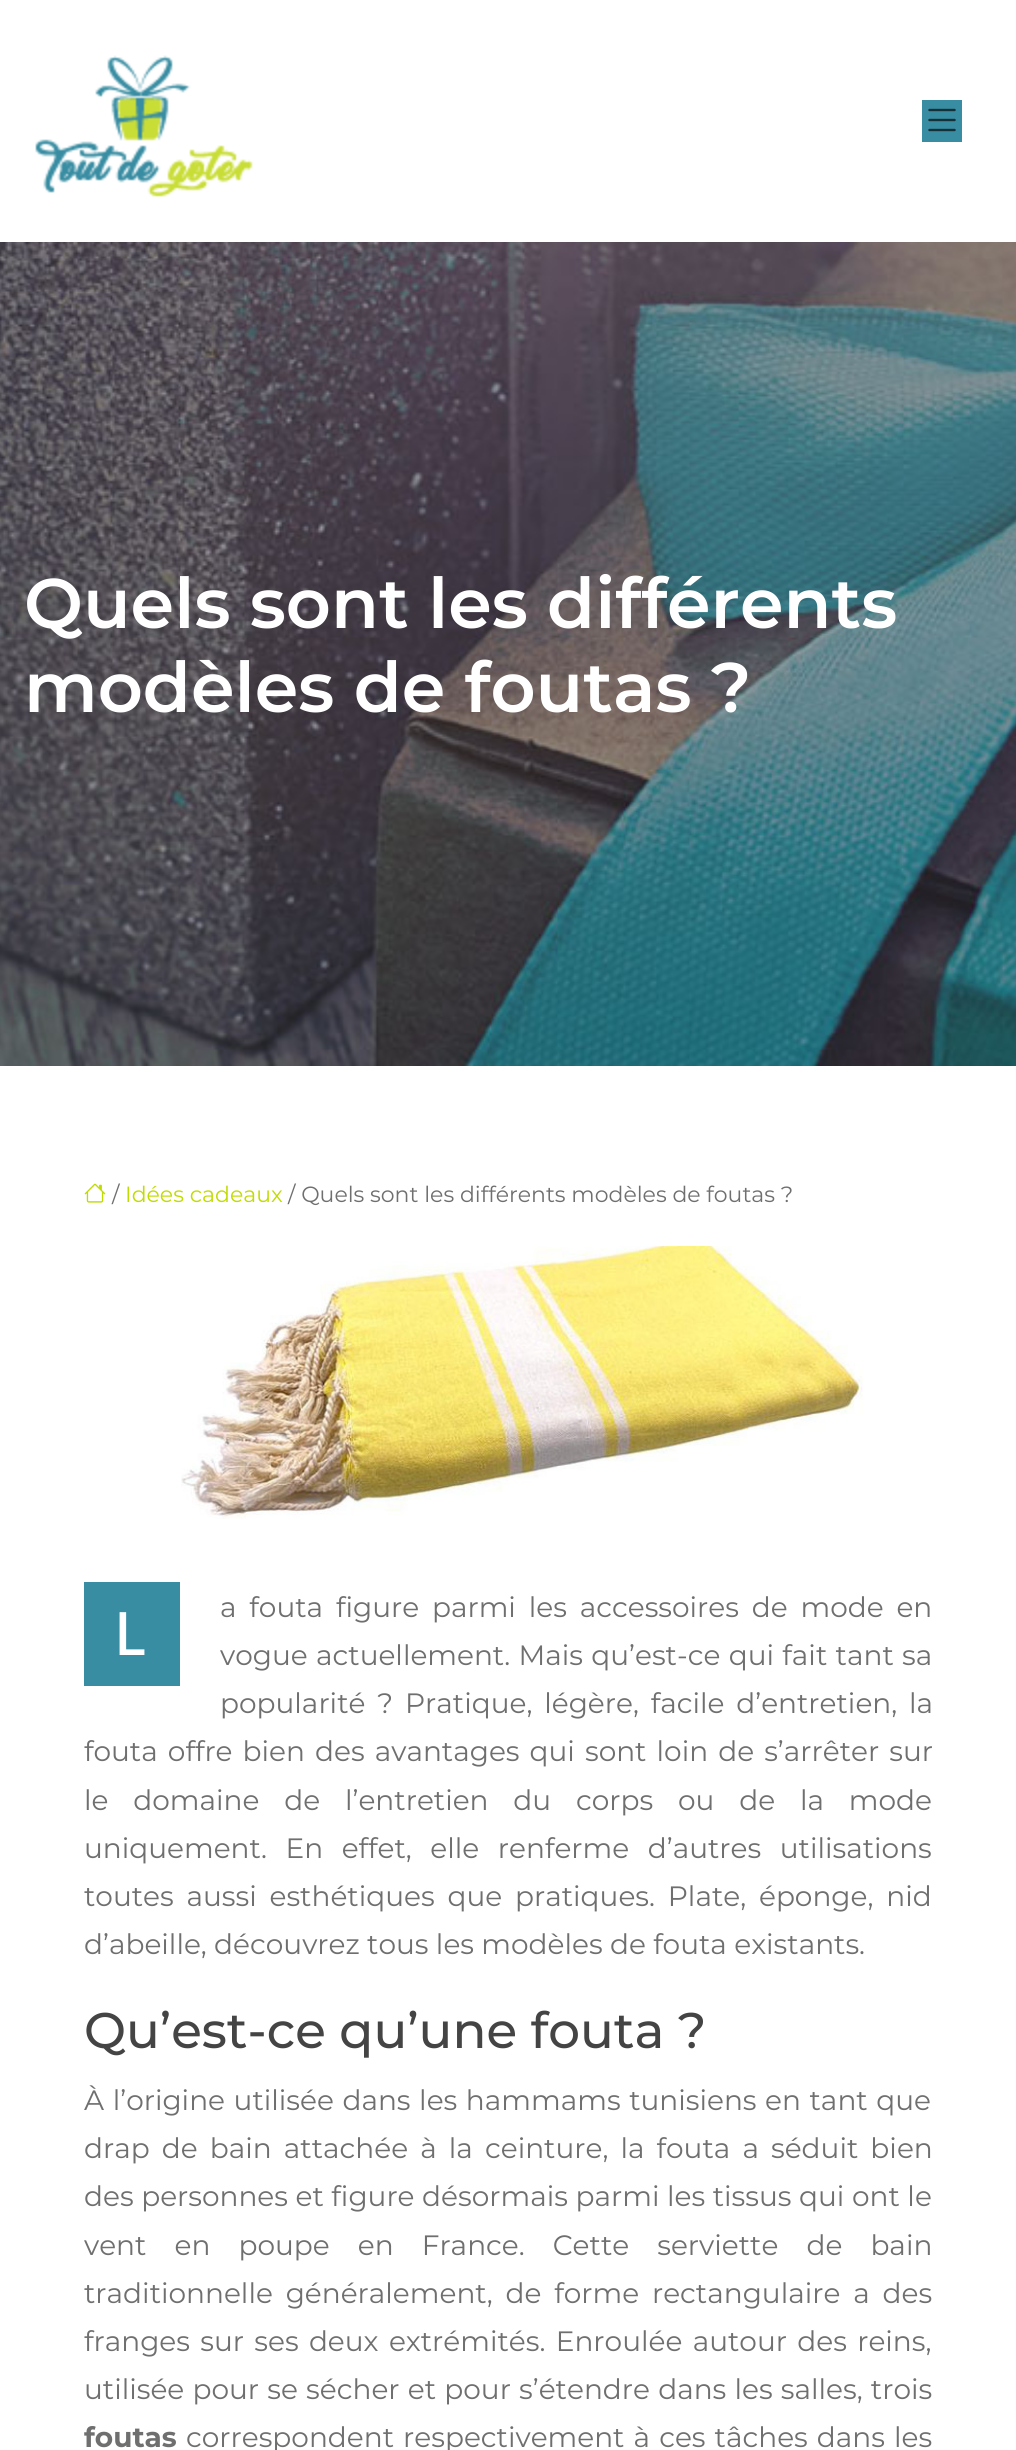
#include <cairo/cairo.h>
#include <math.h>
#include <stddef.h>

static cairo_t *cr;

static void rgb(unsigned color)
{
	cairo_set_source_rgb(cr, (color >> 16) / 255.0, (color >> 8 & 255) / 255.0, (color & 255) / 255.0);
}

static void tracked(double x, double y, const char *s, double letter, double word)
{
	cairo_move_to(cr, x, y);
	while (*s) {
		char ch[5] = {0};
		int n = 0;
		do ch[n++] = *s++; while ((*s & 0xC0) == 0x80);
		cairo_show_text(cr, ch);
		cairo_rel_move_to(cr, letter + word * (*ch == ' '), 0);
	}
}

static void image(const char *path, double x, double y, double w, double h)
{
	cairo_surface_t *image = cairo_image_surface_create_from_png(path);
	cairo_save(cr);
	cairo_set_source_surface(cr, image, x, y);
	cairo_rectangle(cr, x, y, w, h);
	cairo_fill(cr);
	cairo_restore(cr);
	cairo_surface_destroy(image);
}

int main(void) {
	cairo_surface_t *surface = cairo_image_surface_create(CAIRO_FORMAT_RGB24, 1016, 2450);
	cr = cairo_create(surface);
	cairo_font_options_t *options = cairo_font_options_create();
	cairo_font_options_set_hint_metrics(options, CAIRO_HINT_METRICS_OFF);
	cairo_font_options_set_hint_style(options, CAIRO_HINT_STYLE_NONE);
	cairo_set_font_options(cr, options);
	cairo_set_miter_limit(cr, 4);
	rgb(0xffffff);
	cairo_paint(cr);
	image("img/1.png", 35, 55, 218, 142);
	rgb(0x398da2);
	cairo_rectangle(cr, 922, 100, 40, 42);
	cairo_fill(cr);
	image("img/2.png", 928, 108, 28, 24);
	image("img/3.png", 0, 242, 1016, 824);
	image("img/4.png", 84, 1183, 22, 20);
	image("img/5.png", 181, 1246, 682, 273);
	cairo_rectangle(cr, 84, 1582, 96, 104);
	cairo_fill(cr);
	cairo_select_font_face(cr, "Montserrat SemiBold", CAIRO_FONT_SLANT_NORMAL, CAIRO_FONT_WEIGHT_NORMAL);
	cairo_set_font_size(cr, 70);
	rgb(0xffffff);
	cairo_move_to(cr, 24, 628);
	cairo_show_text(cr, "Quels sont les différents");
	cairo_move_to(cr, 24, 712);
	cairo_show_text(cr, "modèles de foutas ?");
	cairo_select_font_face(cr, "Montserrat", CAIRO_FONT_SLANT_NORMAL, CAIRO_FONT_WEIGHT_NORMAL);
	cairo_set_font_size(cr, 22);
	rgb(0x6f6f6f);
	cairo_move_to(cr, 112, 1202);
	cairo_show_text(cr, "/");
	rgb(0xc0db00);
	cairo_move_to(cr, 125, 1202);
	cairo_show_text(cr, "Idées cadeaux");
	rgb(0x6f6f6f);
	cairo_move_to(cr, 288, 1202);
	cairo_show_text(cr, "/ Quels sont les différents modèles de foutas ?");
	cairo_select_font_face(cr, "Noto Sans Medium", CAIRO_FONT_SLANT_NORMAL, CAIRO_FONT_WEIGHT_NORMAL);
	cairo_set_font_size(cr, 60);
	rgb(0xffffff);
	cairo_move_to(cr, 114, 1655);
	cairo_show_text(cr, "L");
	cairo_select_font_face(cr, "Montserrat", CAIRO_FONT_SLANT_NORMAL, CAIRO_FONT_WEIGHT_NORMAL);
	cairo_set_font_size(cr, 28);
	rgb(0x6f6f6f);
	tracked(220, 1617, "a fouta figure parmi les accessoires de mode en", 0, 5.5);
	tracked(220, 1665, "vogue actuellement. Mais qu’est-ce qui fait tant sa", 0, 1);
	tracked(220, 1713, "popularité ? Pratique, légère, facile d’entretien, la", 0, 4.5);
	tracked(84, 1761, "fouta offre bien des avantages qui sont loin de s’arrêter sur", 0, 2.75);
	tracked(84, 1810, "le domaine de l’entretien du corps ou de la mode", 0, 17.5);
	tracked(84, 1858, "uniquement. En effet, elle renferme d’autres utilisations", 0, 11.25);
	tracked(84, 1906, "toutes aussi esthétiques que pratiques. Plate, éponge, nid", 0, 5.5);
	cairo_move_to(cr, 84, 1954);
	cairo_show_text(cr, "d’abeille, découvrez tous les modèles de fouta existants.");
	cairo_select_font_face(cr, "Montserrat Medium", CAIRO_FONT_SLANT_NORMAL, CAIRO_FONT_WEIGHT_NORMAL);
	cairo_set_font_size(cr, 50);
	rgb(0x444444);
	cairo_move_to(cr, 84, 2048);
	cairo_show_text(cr, "Qu’est-ce qu’une fouta ?");
	cairo_select_font_face(cr, "Montserrat", CAIRO_FONT_SLANT_NORMAL, CAIRO_FONT_WEIGHT_NORMAL);
	cairo_set_font_size(cr, 28);
	rgb(0x6f6f6f);
	tracked(84, 2110, "À l’origine utilisée dans les hammams tunisiens en tant que", 0, 1.25);
	tracked(84, 2158, "drap de bain attachée à la ceinture, la fouta a séduit bien", 0, 4.75);
	tracked(84, 2206, "des personnes et figure désormais parmi les tissus qui ont le", 0, 0.25);
	tracked(84, 2255, "vent en poupe en France. Cette serviette de bain", 0, 20.75);
	tracked(84, 2303, "traditionnelle généralement, de forme rectangulaire a des", 0, 5.5);
	tracked(84, 2351, "franges sur ses deux extrémités. Enroulée autour des reins,", 0, 3);
	tracked(84, 2399, "utilisée pour se sécher et pour s’étendre dans les salles, trois", 0, 0.9);
	cairo_select_font_face(cr, "Montserrat", CAIRO_FONT_SLANT_NORMAL, CAIRO_FONT_WEIGHT_BOLD);
	cairo_move_to(cr, 84, 2447);
	cairo_show_text(cr, "foutas");
	cairo_select_font_face(cr, "Montserrat", CAIRO_FONT_SLANT_NORMAL, CAIRO_FONT_WEIGHT_NORMAL);
	tracked(186, 2447, "correspondent respectivement à ces tâches dans les", 0, 1.75);
	cairo_surface_write_to_png(surface, "page.png");
	cairo_font_options_destroy(options);
	cairo_destroy(cr);
	cairo_surface_destroy(surface);
	return 0;
}
